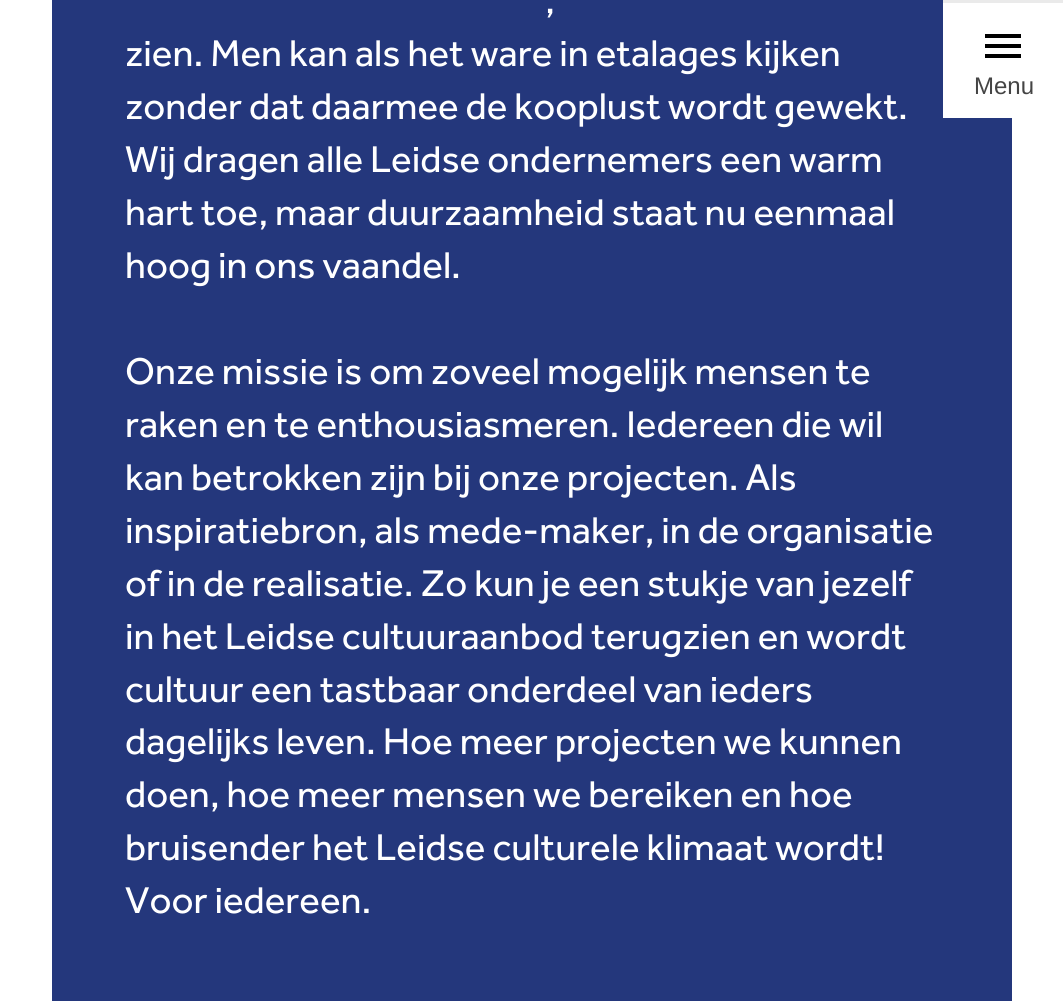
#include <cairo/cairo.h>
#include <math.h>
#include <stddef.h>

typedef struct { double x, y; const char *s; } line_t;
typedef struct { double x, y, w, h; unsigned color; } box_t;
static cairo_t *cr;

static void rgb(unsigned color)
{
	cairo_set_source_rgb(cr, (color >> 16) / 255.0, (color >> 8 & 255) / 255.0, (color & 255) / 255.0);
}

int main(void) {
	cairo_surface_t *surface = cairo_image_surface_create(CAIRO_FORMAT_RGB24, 1063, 1007);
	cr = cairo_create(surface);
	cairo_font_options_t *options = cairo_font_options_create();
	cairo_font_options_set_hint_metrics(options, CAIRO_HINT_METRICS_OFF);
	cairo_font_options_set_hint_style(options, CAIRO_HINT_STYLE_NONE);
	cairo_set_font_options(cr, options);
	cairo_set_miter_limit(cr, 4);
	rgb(0xffffff);
	cairo_paint(cr);
	{
		static const box_t items[] = {
			{52, 0, 960, 1001, 0x24377c},
			{943, 0, 120, 3, 0xeaeaea},
			{943, 3, 69, 115, 0xffffff},
		};
		for (size_t i = 0; i < sizeof items / sizeof *items; i++) {
			rgb(items[i].color);
			cairo_rectangle(cr, items[i].x, items[i].y, items[i].w, items[i].h);
			cairo_fill(cr);
		}
	}
	rgb(0x000000);
	cairo_new_path(cr);
	cairo_move_to(cr, 985, 58);
	cairo_line_to(cr, 1021, 58);
	cairo_line_to(cr, 1021, 54);
	cairo_line_to(cr, 985, 54);
	cairo_close_path(cr);
	cairo_move_to(cr, 985, 48);
	cairo_line_to(cr, 1021, 48);
	cairo_line_to(cr, 1021, 44);
	cairo_line_to(cr, 985, 44);
	cairo_close_path(cr);
	cairo_move_to(cr, 985, 34);
	cairo_line_to(cr, 985, 38);
	cairo_line_to(cr, 1021, 38);
	cairo_line_to(cr, 1021, 34);
	cairo_close_path(cr);
	cairo_fill(cr);
	cairo_select_font_face(cr, "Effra", CAIRO_FONT_SLANT_NORMAL, CAIRO_FONT_WEIGHT_NORMAL);
	cairo_set_font_size(cr, 38.5);
	rgb(0xffffff);
	{
		static const line_t items[] = {
			{545, 13, ","},
			{125, 66, "zien. Men kan als het ware in etalages kijken"},
			{125, 119, "zonder dat daarmee de kooplust wordt gewekt."},
			{125, 172, "Wij dragen alle Leidse ondernemers een warm"},
			{125, 225, "hart toe, maar duurzaamheid staat nu eenmaal"},
			{125, 278, "hoog in ons vaandel."},
			{125, 384, "Onze missie is om zoveel mogelijk mensen te"},
			{125, 437, "raken en te enthousiasmeren. Iedereen die wil"},
			{125, 490, "kan betrokken zijn bij onze projecten. Als"},
			{125, 543, "inspiratiebron, als mede-maker, in de organisatie"},
			{125, 596, "of in de realisatie. Zo kun je een stukje van jezelf"},
			{125, 649, "in het Leidse cultuuraanbod terugzien en wordt"},
			{125, 702, "cultuur een tastbaar onderdeel van ieders"},
			{125, 754, "dagelijks leven. Hoe meer projecten we kunnen"},
			{125, 807, "doen, hoe meer mensen we bereiken en hoe"},
			{125, 860, "bruisender het Leidse culturele klimaat wordt!"},
			{125, 913, "Voor iedereen."},
		};
		for (size_t i = 0; i < sizeof items / sizeof *items; i++) {
			cairo_move_to(cr, items[i].x, items[i].y);
			cairo_show_text(cr, items[i].s);
		}
	}
	cairo_select_font_face(cr, "Liberation Sans", CAIRO_FONT_SLANT_NORMAL, CAIRO_FONT_WEIGHT_NORMAL);
	cairo_set_font_size(cr, 24);
	rgb(0x444444);
	cairo_move_to(cr, 974, 94);
	cairo_show_text(cr, "Menu");
	cairo_surface_write_to_png(surface, "page.png");
	cairo_font_options_destroy(options);
	cairo_destroy(cr);
	cairo_surface_destroy(surface);
	return 0;
}
